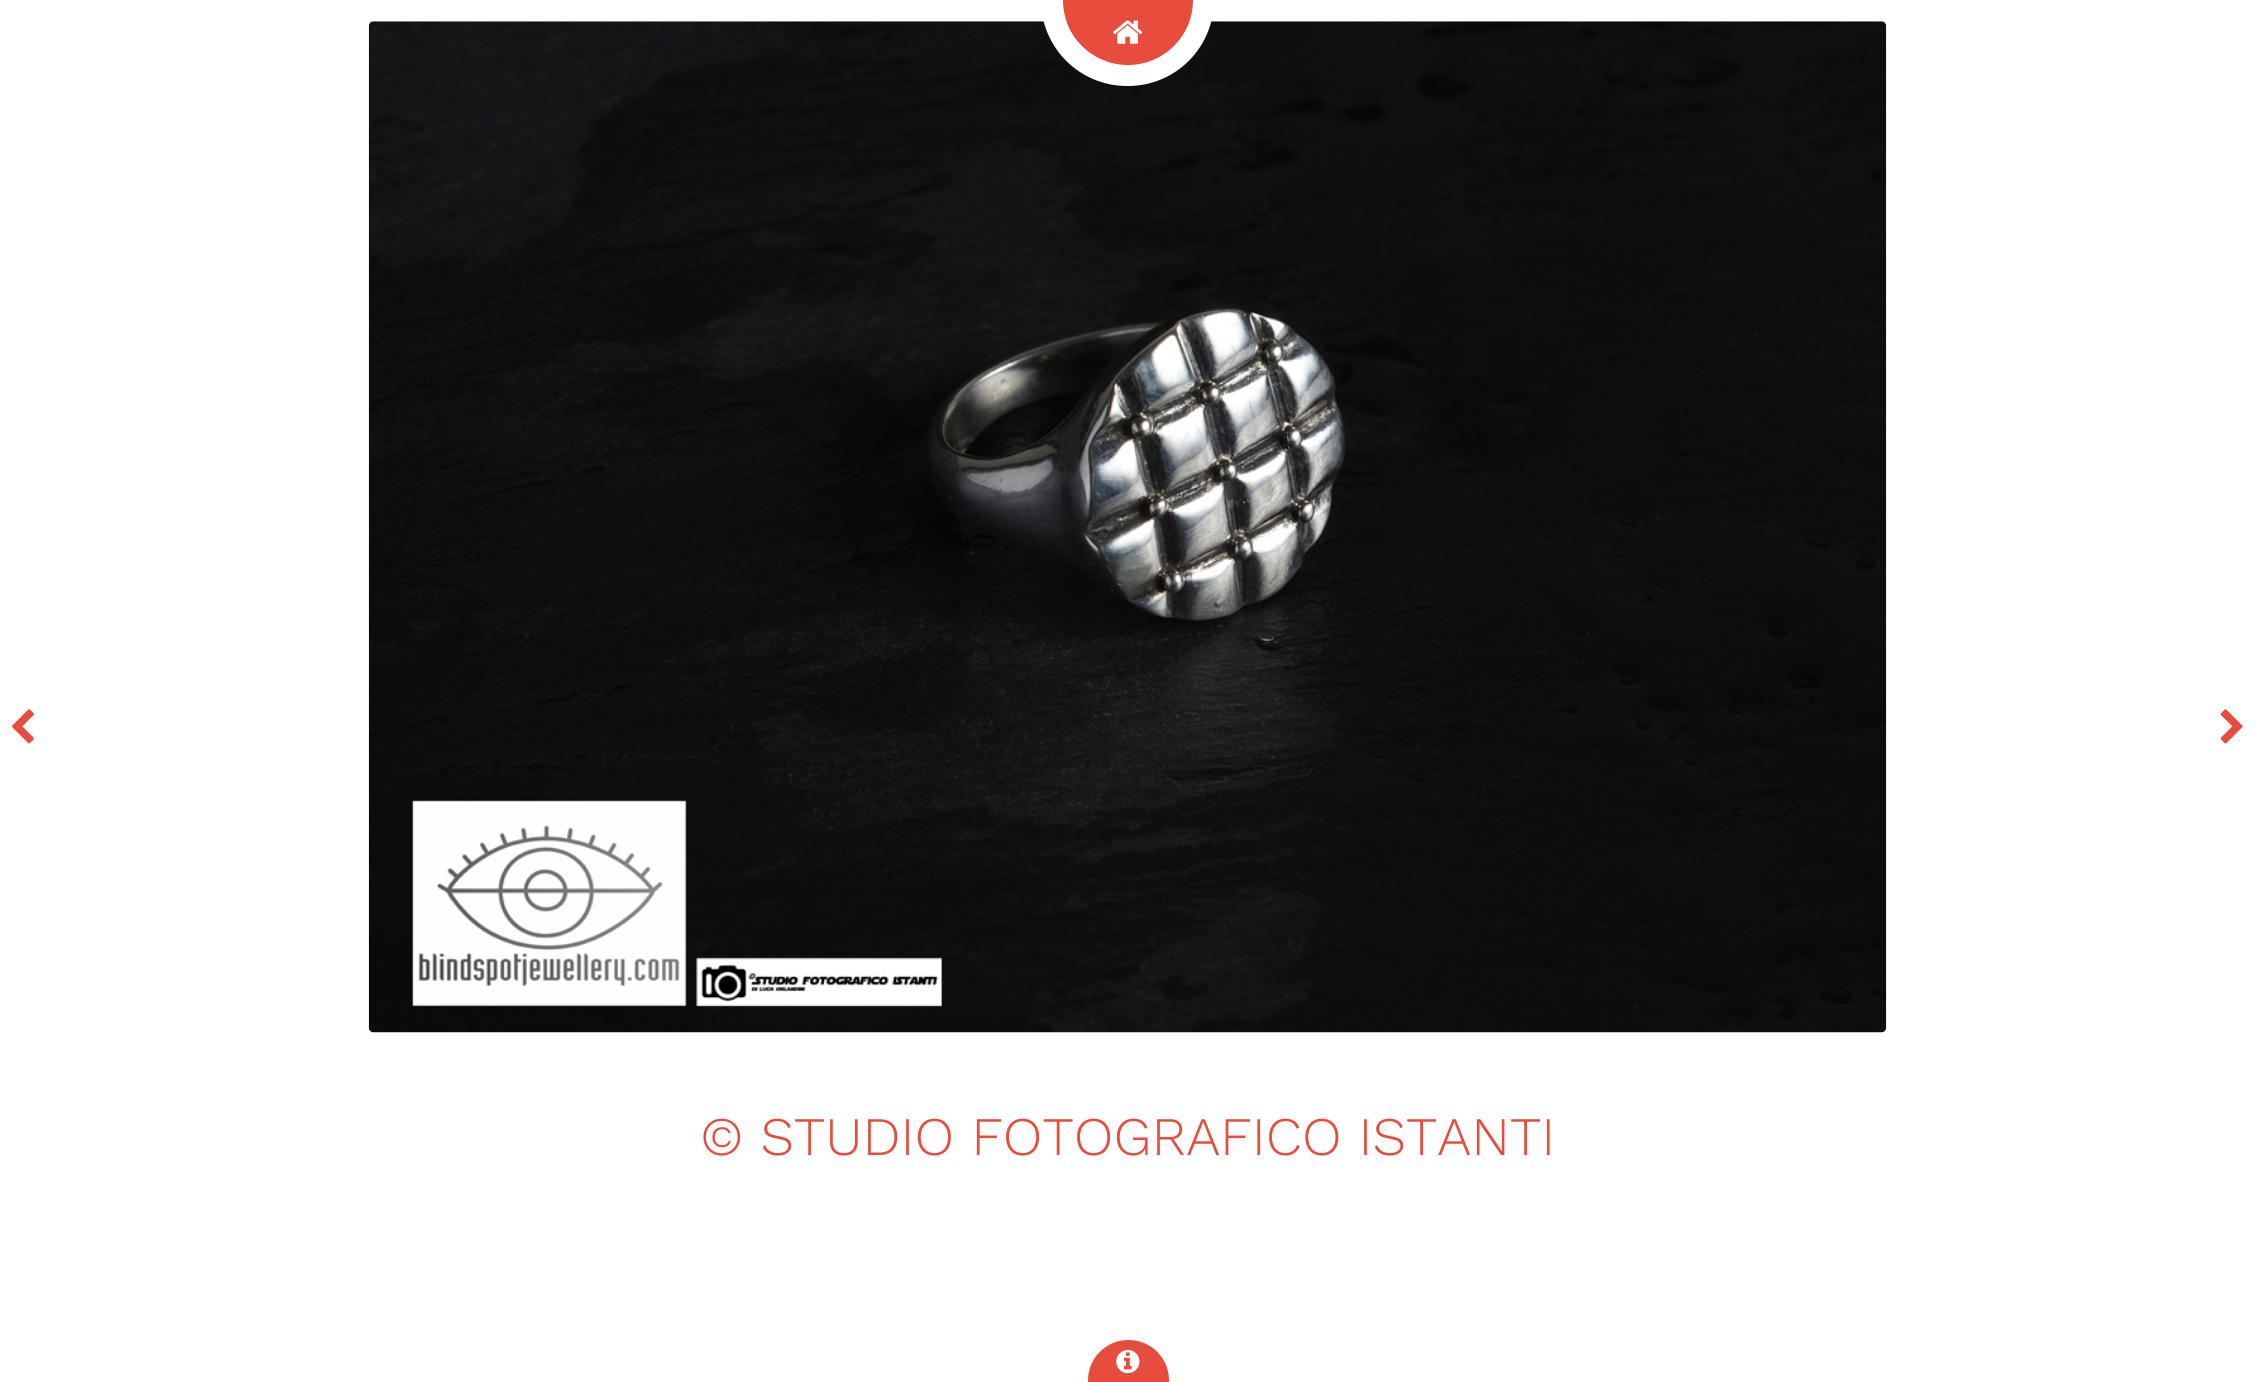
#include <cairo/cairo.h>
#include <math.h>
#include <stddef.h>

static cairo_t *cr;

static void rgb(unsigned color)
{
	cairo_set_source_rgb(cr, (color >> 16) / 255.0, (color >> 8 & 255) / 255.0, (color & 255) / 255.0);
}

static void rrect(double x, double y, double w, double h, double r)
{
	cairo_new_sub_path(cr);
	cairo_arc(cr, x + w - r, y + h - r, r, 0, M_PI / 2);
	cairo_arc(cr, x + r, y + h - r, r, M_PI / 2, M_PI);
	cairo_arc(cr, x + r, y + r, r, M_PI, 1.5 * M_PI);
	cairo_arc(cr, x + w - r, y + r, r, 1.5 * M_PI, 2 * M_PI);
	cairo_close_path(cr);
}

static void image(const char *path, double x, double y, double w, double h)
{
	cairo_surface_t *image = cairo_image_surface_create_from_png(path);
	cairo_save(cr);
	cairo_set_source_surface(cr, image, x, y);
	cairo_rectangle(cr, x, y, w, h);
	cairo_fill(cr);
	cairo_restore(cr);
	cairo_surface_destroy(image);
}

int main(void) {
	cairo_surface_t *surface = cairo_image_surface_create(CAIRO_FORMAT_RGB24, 2255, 1382);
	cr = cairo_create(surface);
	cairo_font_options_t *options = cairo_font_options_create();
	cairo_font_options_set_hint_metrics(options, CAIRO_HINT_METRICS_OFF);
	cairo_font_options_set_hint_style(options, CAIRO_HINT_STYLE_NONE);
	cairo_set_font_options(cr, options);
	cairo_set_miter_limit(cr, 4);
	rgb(0xffffff);
	cairo_paint(cr);
	image("img/4.png", 368, 21, 1519, 1012);
	rrect(1052, -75, 151, 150, 75);
	rgb(0xffffff);
	cairo_set_line_width(cr, 22);
	cairo_stroke(cr);
	rgb(0xe74c3c);
	cairo_arc(cr, 1128, 0, 65, 0, 2 * M_PI);
	cairo_fill(cr);
	image("img/1.png", 1113, 20, 30, 24);
	image("img/2.png", 12, 709, 22, 35);
	image("img/3.png", 2220, 709, 23, 35);
	cairo_new_path(cr);
	cairo_move_to(cr, 1128.5, 1340);
	cairo_curve_to(cr, 1151, 1340, 1169, 1358, 1169, 1380.5);
	cairo_line_to(cr, 1169, 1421);
	cairo_line_to(cr, 1088, 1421);
	cairo_line_to(cr, 1088, 1380.5);
	cairo_curve_to(cr, 1088, 1358, 1106, 1340, 1128.5, 1340);
	cairo_close_path(cr);
	cairo_fill(cr);
	image("img/5.png", 1116, 1350, 24, 24);
	cairo_select_font_face(cr, "Work Sans Light", CAIRO_FONT_SLANT_NORMAL, CAIRO_FONT_WEIGHT_NORMAL);
	cairo_set_font_size(cr, 54.2);
	cairo_move_to(cr, 700, 1155);
	cairo_show_text(cr, "© STUDIO FOTOGRAFICO ISTANTI");
	cairo_surface_write_to_png(surface, "page.png");
	cairo_font_options_destroy(options);
	cairo_destroy(cr);
	cairo_surface_destroy(surface);
	return 0;
}
